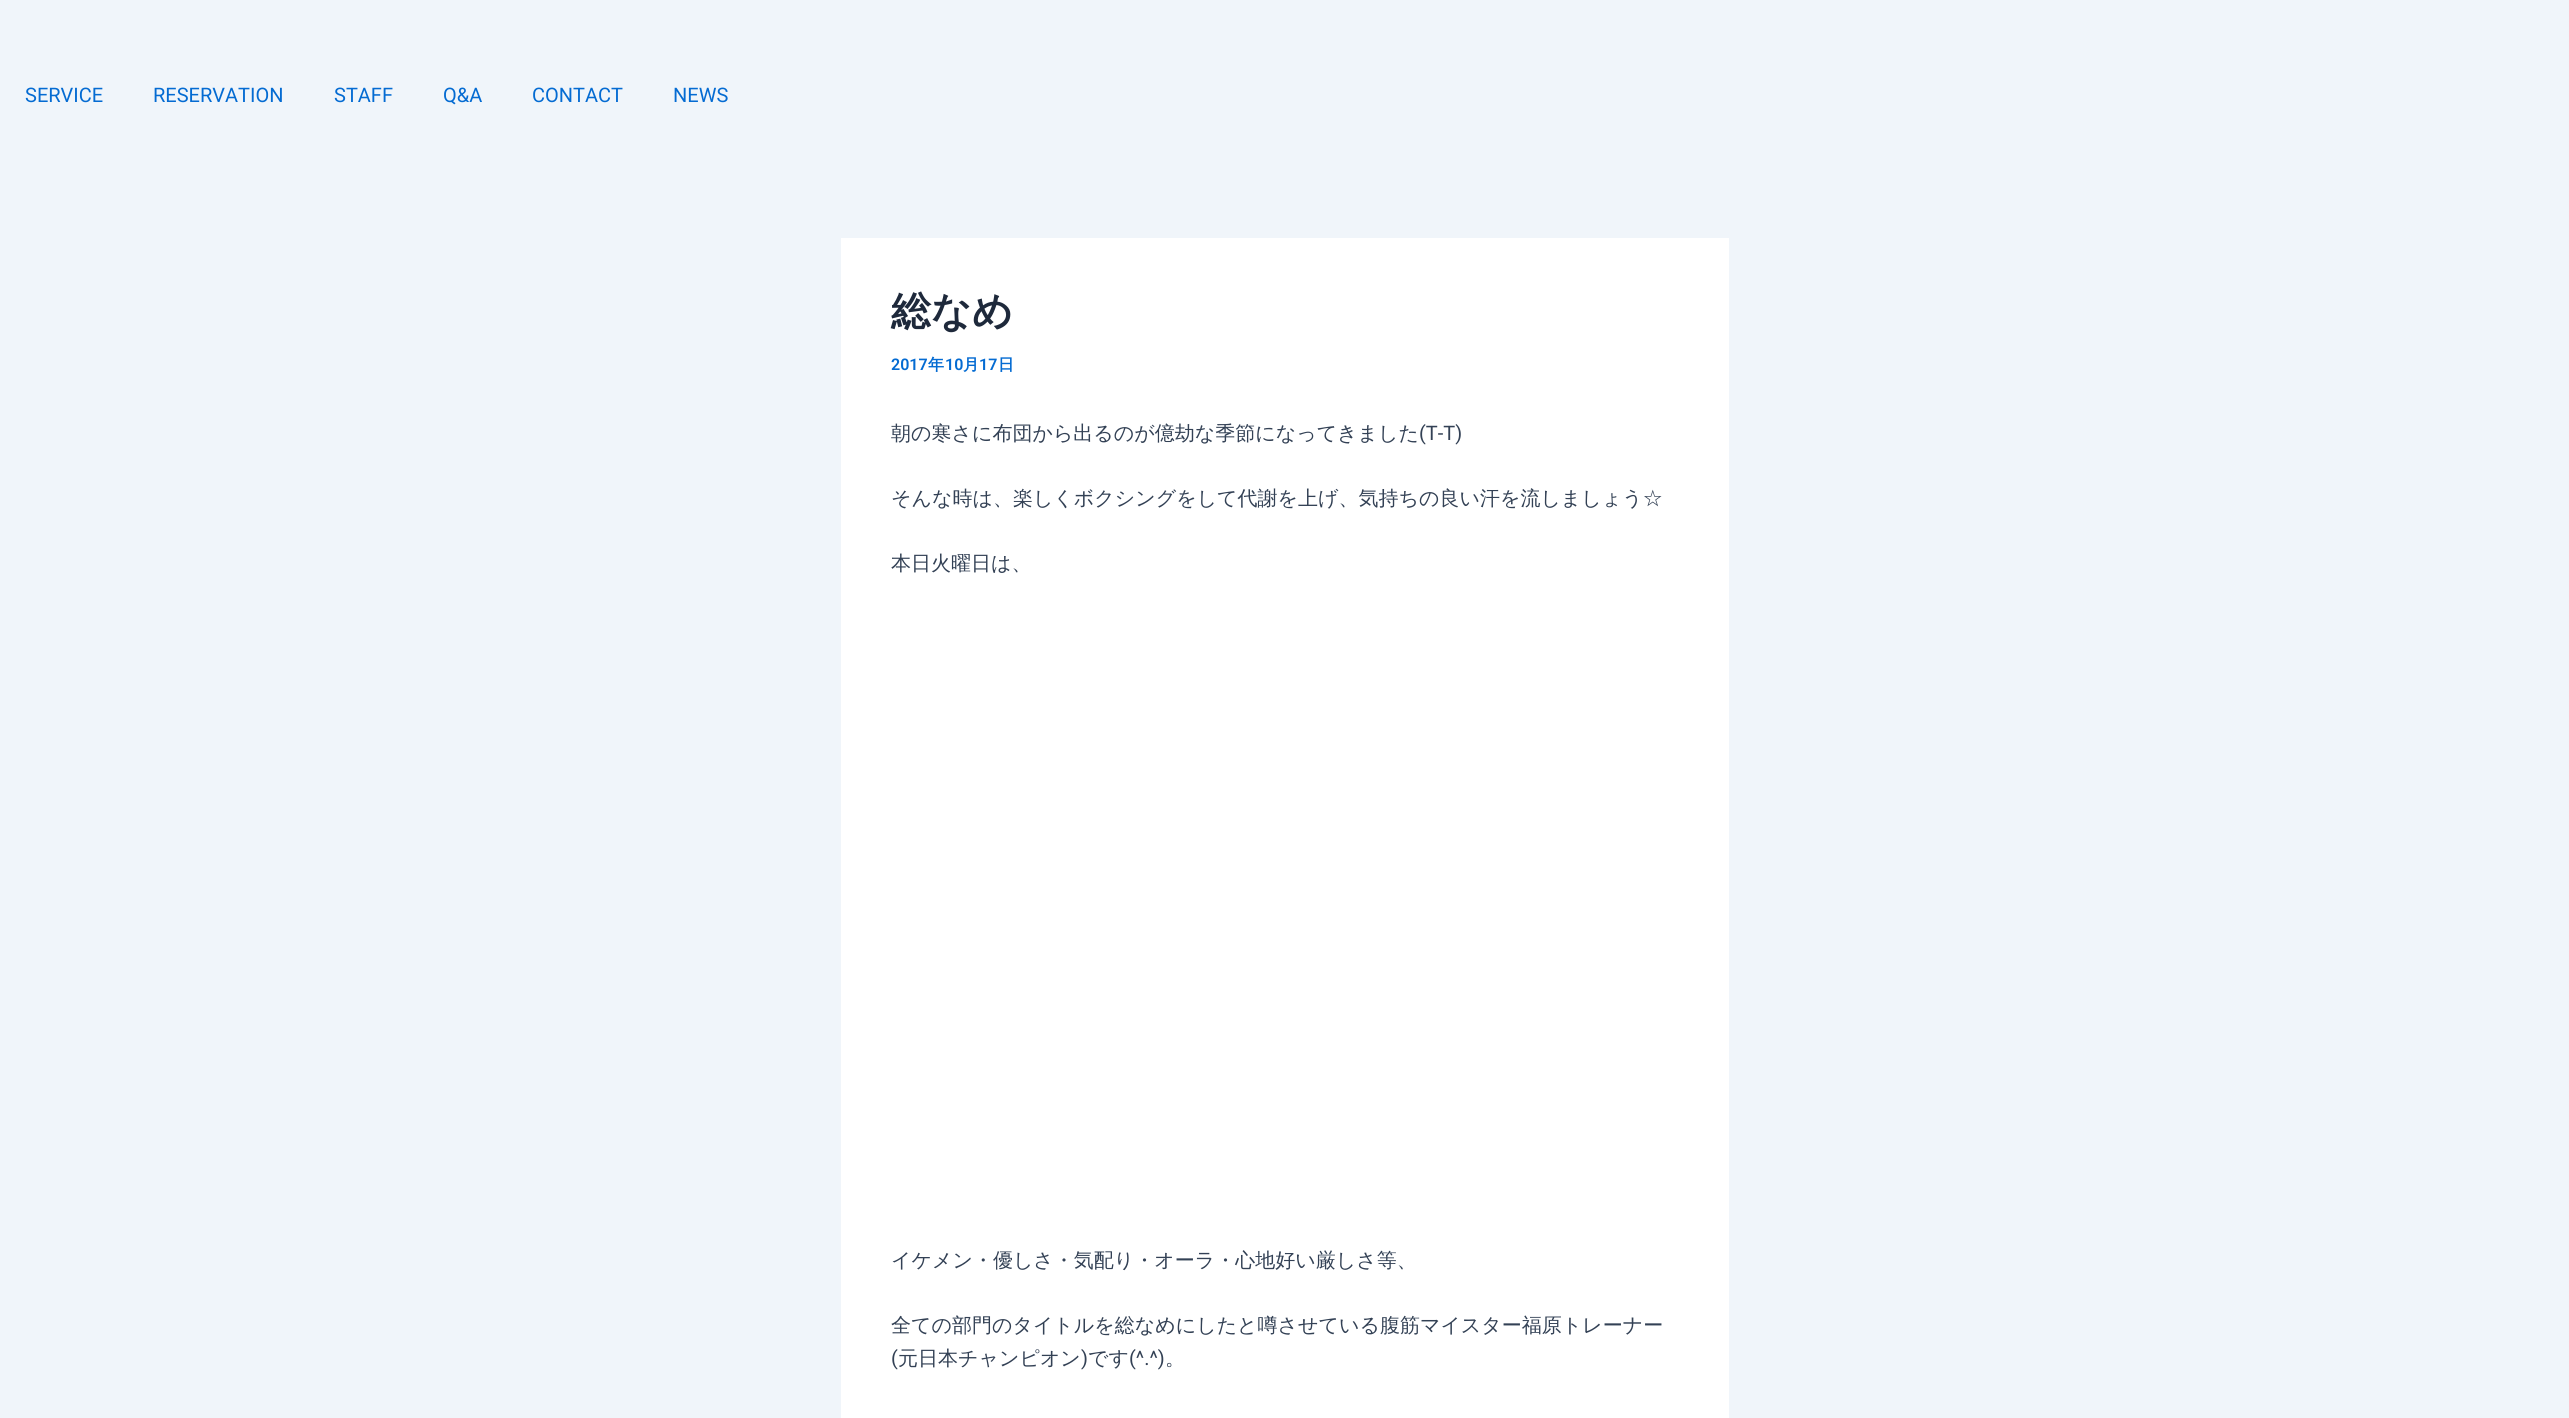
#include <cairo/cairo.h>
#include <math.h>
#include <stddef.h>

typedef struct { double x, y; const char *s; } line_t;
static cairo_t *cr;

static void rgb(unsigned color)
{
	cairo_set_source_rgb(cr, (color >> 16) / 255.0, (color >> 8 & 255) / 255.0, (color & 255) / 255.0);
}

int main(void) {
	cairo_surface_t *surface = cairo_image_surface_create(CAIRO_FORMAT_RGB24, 2569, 1418);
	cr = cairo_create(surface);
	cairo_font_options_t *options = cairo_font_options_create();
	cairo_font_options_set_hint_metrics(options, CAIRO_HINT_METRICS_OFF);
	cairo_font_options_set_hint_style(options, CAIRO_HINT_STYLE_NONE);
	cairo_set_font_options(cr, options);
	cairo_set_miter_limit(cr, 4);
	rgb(0xf0f5fa);
	cairo_paint(cr);
	rgb(0xffffff);
	cairo_rectangle(cr, 841, 238, 888, 1180);
	cairo_fill(cr);
	cairo_select_font_face(cr, "Roboto", CAIRO_FONT_SLANT_NORMAL, CAIRO_FONT_WEIGHT_NORMAL);
	cairo_set_font_size(cr, 20);
	rgb(0x046bd2);
	{
		static const line_t items[] = {
			{25, 102, "SERVICE"},
			{153, 102, "RESERVATION"},
			{334, 102, "STAFF"},
			{443, 102, "Q&A"},
			{532, 102, "CONTACT"},
			{673, 102, "NEWS"},
		};
		for (size_t i = 0; i < sizeof items / sizeof *items; i++) {
			cairo_move_to(cr, items[i].x, items[i].y);
			cairo_show_text(cr, items[i].s);
		}
	}
	cairo_select_font_face(cr, "WenQuanYi Zen Hei", CAIRO_FONT_SLANT_NORMAL, CAIRO_FONT_WEIGHT_BOLD);
	cairo_set_font_size(cr, 40);
	rgb(0x1e293b);
	cairo_move_to(cr, 891, 325);
	cairo_show_text(cr, "総なめ");
	cairo_select_font_face(cr, "Roboto SemiBold", CAIRO_FONT_SLANT_NORMAL, CAIRO_FONT_WEIGHT_NORMAL);
	cairo_set_font_size(cr, 16);
	rgb(0x046bd2);
	cairo_move_to(cr, 891, 370);
	cairo_show_text(cr, "2017");
	cairo_select_font_face(cr, "WenQuanYi Zen Hei", CAIRO_FONT_SLANT_NORMAL, CAIRO_FONT_WEIGHT_BOLD);
	cairo_move_to(cr, 928, 370);
	cairo_show_text(cr, "年");
	cairo_select_font_face(cr, "Roboto SemiBold", CAIRO_FONT_SLANT_NORMAL, CAIRO_FONT_WEIGHT_NORMAL);
	cairo_move_to(cr, 945, 370);
	cairo_show_text(cr, "10");
	cairo_select_font_face(cr, "WenQuanYi Zen Hei", CAIRO_FONT_SLANT_NORMAL, CAIRO_FONT_WEIGHT_BOLD);
	cairo_move_to(cr, 963, 370);
	cairo_show_text(cr, "月");
	cairo_select_font_face(cr, "Roboto SemiBold", CAIRO_FONT_SLANT_NORMAL, CAIRO_FONT_WEIGHT_NORMAL);
	cairo_move_to(cr, 979, 370);
	cairo_show_text(cr, "17");
	cairo_select_font_face(cr, "WenQuanYi Zen Hei", CAIRO_FONT_SLANT_NORMAL, CAIRO_FONT_WEIGHT_BOLD);
	cairo_move_to(cr, 998, 370);
	cairo_show_text(cr, "日");
	cairo_select_font_face(cr, "WenQuanYi Zen Hei Medium", CAIRO_FONT_SLANT_NORMAL, CAIRO_FONT_WEIGHT_NORMAL);
	cairo_set_font_size(cr, 20);
	rgb(0x334155);
	cairo_move_to(cr, 891, 440);
	cairo_show_text(cr, "朝の寒さに布団から出るのが億劫な季節になってきました");
	cairo_select_font_face(cr, "Roboto", CAIRO_FONT_SLANT_NORMAL, CAIRO_FONT_WEIGHT_NORMAL);
	cairo_move_to(cr, 1419, 440);
	cairo_show_text(cr, "(T-T)");
	cairo_select_font_face(cr, "WenQuanYi Zen Hei Medium", CAIRO_FONT_SLANT_NORMAL, CAIRO_FONT_WEIGHT_NORMAL);
	{
		static const line_t items[] = {
			{891, 505, "そんな時は、楽しくボクシングをして代謝を上げ、気持ちの良い汗を流しましょう☆"},
			{891, 570, "本日火曜日は、"},
			{891, 1267, "イケメン・優しさ・気配り・オーラ・心地好い厳しさ等、"},
			{891, 1332, "全ての部門のタイトルを総なめにしたと噂させている腹筋マイスター福原トレーナー"},
		};
		for (size_t i = 0; i < sizeof items / sizeof *items; i++) {
			cairo_move_to(cr, items[i].x, items[i].y);
			cairo_show_text(cr, items[i].s);
		}
	}
	cairo_select_font_face(cr, "Roboto", CAIRO_FONT_SLANT_NORMAL, CAIRO_FONT_WEIGHT_NORMAL);
	cairo_move_to(cr, 891, 1365);
	cairo_show_text(cr, "(");
	cairo_select_font_face(cr, "WenQuanYi Zen Hei Medium", CAIRO_FONT_SLANT_NORMAL, CAIRO_FONT_WEIGHT_NORMAL);
	cairo_move_to(cr, 898, 1365);
	cairo_show_text(cr, "元日本チャンピオン");
	cairo_select_font_face(cr, "Roboto", CAIRO_FONT_SLANT_NORMAL, CAIRO_FONT_WEIGHT_NORMAL);
	cairo_move_to(cr, 1081, 1365);
	cairo_show_text(cr, ")");
	cairo_select_font_face(cr, "WenQuanYi Zen Hei Medium", CAIRO_FONT_SLANT_NORMAL, CAIRO_FONT_WEIGHT_NORMAL);
	cairo_move_to(cr, 1088, 1365);
	cairo_show_text(cr, "です");
	cairo_select_font_face(cr, "Roboto", CAIRO_FONT_SLANT_NORMAL, CAIRO_FONT_WEIGHT_NORMAL);
	cairo_move_to(cr, 1129, 1365);
	cairo_show_text(cr, "(^.^)");
	cairo_select_font_face(cr, "WenQuanYi Zen Hei Medium", CAIRO_FONT_SLANT_NORMAL, CAIRO_FONT_WEIGHT_NORMAL);
	cairo_move_to(cr, 1165, 1365);
	cairo_show_text(cr, "。");
	cairo_surface_write_to_png(surface, "page.png");
	cairo_font_options_destroy(options);
	cairo_destroy(cr);
	cairo_surface_destroy(surface);
	return 0;
}
